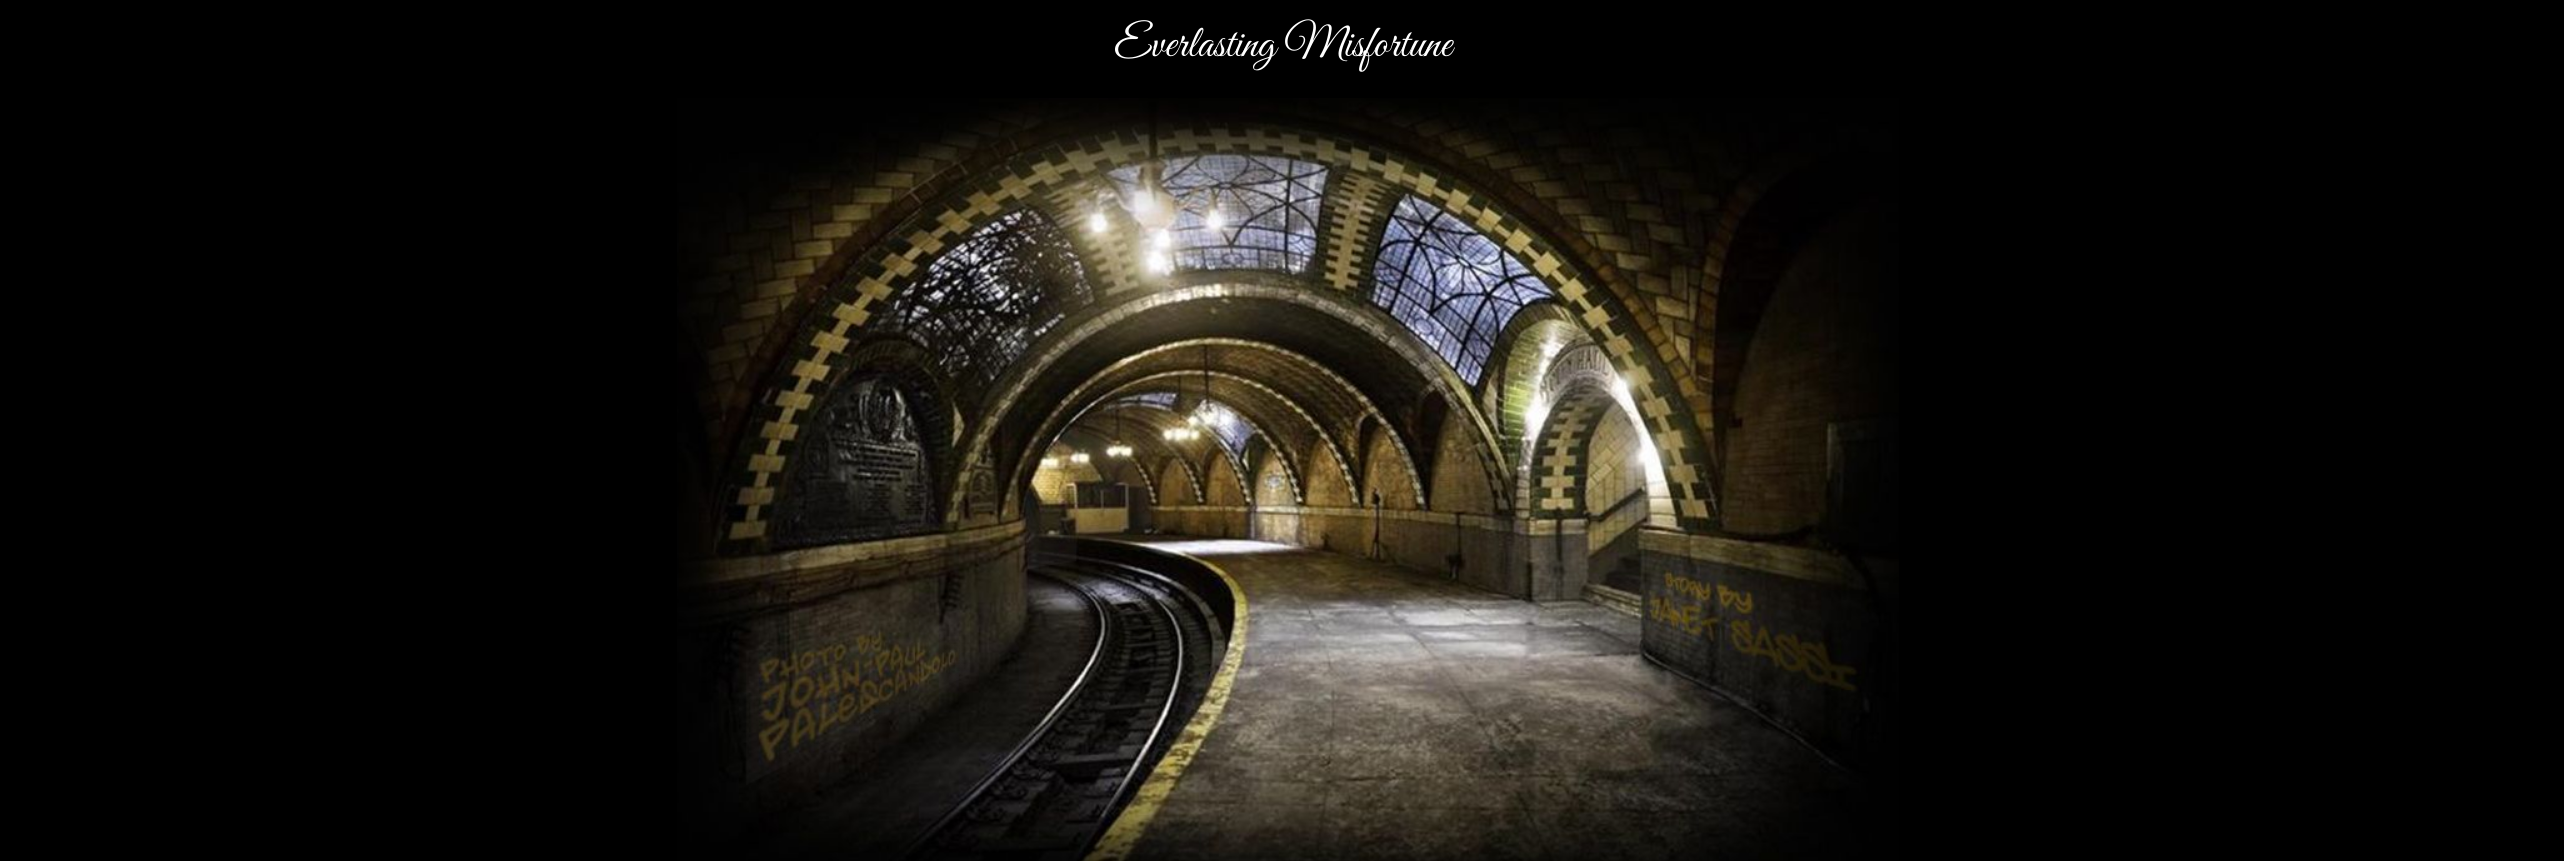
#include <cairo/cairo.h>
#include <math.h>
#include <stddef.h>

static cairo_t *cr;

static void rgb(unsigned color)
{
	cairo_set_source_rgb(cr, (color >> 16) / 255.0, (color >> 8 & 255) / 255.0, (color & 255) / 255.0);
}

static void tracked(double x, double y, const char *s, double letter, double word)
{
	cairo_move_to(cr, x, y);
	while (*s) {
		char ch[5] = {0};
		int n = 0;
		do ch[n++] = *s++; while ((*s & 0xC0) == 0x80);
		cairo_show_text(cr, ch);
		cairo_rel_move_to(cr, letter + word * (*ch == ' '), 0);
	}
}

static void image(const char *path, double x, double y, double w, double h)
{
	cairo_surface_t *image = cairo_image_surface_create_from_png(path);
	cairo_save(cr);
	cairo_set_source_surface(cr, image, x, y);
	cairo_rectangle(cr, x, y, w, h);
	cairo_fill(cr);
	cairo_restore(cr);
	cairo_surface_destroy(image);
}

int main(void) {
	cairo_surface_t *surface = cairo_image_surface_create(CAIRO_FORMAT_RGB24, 2564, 861);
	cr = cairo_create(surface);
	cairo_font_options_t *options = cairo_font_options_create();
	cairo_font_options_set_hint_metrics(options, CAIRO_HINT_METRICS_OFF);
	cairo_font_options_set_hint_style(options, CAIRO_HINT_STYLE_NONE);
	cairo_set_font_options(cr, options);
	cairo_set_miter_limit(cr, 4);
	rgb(0x000000);
	cairo_paint(cr);
	image("img/1.png", 677, 98, 1222, 763);
	cairo_select_font_face(cr, "Great Vibes", CAIRO_FONT_SLANT_NORMAL, CAIRO_FONT_WEIGHT_NORMAL);
	cairo_set_font_size(cr, 45);
	rgb(0xffffff);
	tracked(1114, 56, "Everlasting Misfortune", 0, 1);
	cairo_surface_write_to_png(surface, "page.png");
	cairo_font_options_destroy(options);
	cairo_destroy(cr);
	cairo_surface_destroy(surface);
	return 0;
}
